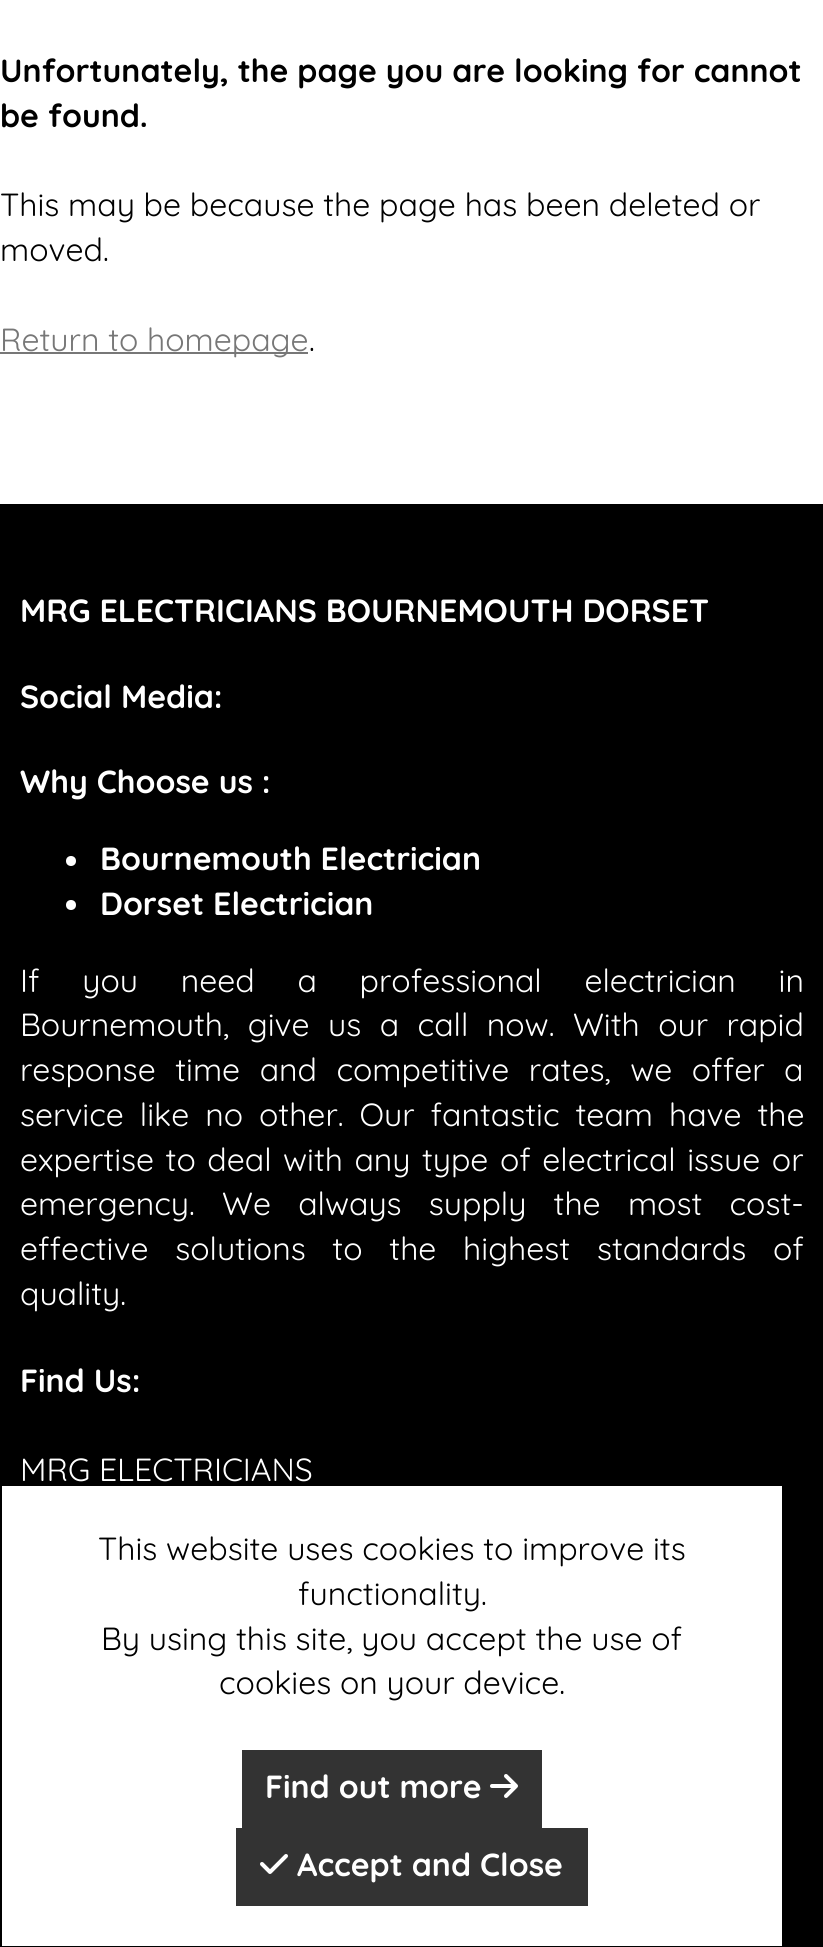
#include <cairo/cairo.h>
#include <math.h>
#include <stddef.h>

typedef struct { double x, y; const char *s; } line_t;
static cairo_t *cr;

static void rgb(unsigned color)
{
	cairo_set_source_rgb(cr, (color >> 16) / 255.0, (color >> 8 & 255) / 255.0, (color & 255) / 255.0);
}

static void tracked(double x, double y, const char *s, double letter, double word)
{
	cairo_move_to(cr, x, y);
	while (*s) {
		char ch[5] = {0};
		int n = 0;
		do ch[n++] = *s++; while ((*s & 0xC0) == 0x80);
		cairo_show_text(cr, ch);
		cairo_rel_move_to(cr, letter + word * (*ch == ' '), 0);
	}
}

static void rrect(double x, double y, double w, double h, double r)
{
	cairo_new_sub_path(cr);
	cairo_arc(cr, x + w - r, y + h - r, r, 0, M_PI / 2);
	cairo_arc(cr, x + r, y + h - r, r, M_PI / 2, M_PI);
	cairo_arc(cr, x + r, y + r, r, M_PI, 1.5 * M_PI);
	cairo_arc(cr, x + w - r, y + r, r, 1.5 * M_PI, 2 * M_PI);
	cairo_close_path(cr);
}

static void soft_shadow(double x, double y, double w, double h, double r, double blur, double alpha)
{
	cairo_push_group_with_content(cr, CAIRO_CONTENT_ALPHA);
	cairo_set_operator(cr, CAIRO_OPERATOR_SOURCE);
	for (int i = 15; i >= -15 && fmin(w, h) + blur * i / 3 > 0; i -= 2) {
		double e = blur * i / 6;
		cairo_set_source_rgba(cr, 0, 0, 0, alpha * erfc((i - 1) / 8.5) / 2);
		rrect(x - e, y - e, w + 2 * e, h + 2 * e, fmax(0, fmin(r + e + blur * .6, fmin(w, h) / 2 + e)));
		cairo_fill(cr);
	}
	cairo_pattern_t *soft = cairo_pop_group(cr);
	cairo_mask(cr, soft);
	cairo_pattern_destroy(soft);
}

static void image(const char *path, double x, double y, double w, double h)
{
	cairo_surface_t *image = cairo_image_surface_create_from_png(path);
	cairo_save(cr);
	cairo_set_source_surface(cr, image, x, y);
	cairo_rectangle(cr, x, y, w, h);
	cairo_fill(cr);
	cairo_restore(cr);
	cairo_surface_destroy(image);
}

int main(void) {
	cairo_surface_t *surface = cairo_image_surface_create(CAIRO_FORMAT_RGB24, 823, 1947);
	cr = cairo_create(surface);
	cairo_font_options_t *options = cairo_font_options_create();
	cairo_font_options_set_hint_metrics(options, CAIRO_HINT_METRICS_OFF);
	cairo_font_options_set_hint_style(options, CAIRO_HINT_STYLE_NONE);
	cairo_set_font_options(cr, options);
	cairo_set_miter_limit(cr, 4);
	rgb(0xffffff);
	cairo_paint(cr);
	rgb(0x777777);
	cairo_rectangle(cr, 0, 352, 308, 2);
	cairo_fill(cr);
	rgb(0x000000);
	cairo_rectangle(cr, 0, 504, 823, 1443);
	cairo_fill(cr);
	rgb(0xffffff);
	cairo_arc(cr, 71, 861, 5, 0, 2 * M_PI);
	cairo_fill(cr);
	cairo_arc(cr, 71, 905, 5, 0, 2 * M_PI);
	cairo_fill(cr);
	rgb(0x000000);
	soft_shadow(0, 1484, 784, 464, 0, 5, 1);
	rgb(0xffffff);
	cairo_rectangle(cr, 2, 1486, 780, 460);
	cairo_fill(cr);
	rgb(0x333333);
	cairo_rectangle(cr, 242, 1750, 300, 78);
	cairo_fill(cr);
	image("img/1.png", 490, 1774, 28, 24);
	cairo_rectangle(cr, 236, 1828, 352, 78);
	cairo_fill(cr);
	image("img/2.png", 260, 1854, 28, 20);
	cairo_select_font_face(cr, "Quicksand", CAIRO_FONT_SLANT_NORMAL, CAIRO_FONT_WEIGHT_BOLD);
	cairo_set_font_size(cr, 32);
	rgb(0x000000);
	cairo_move_to(cr, 0, 82);
	cairo_show_text(cr, "Unfortunately, the page you are looking for cannot");
	cairo_move_to(cr, 0, 127);
	cairo_show_text(cr, "be found.");
	cairo_select_font_face(cr, "Quicksand", CAIRO_FONT_SLANT_NORMAL, CAIRO_FONT_WEIGHT_NORMAL);
	cairo_move_to(cr, 0, 216);
	cairo_show_text(cr, "This may be because the page has been deleted or");
	cairo_move_to(cr, 0, 261);
	cairo_show_text(cr, "moved.");
	rgb(0x777777);
	cairo_move_to(cr, 0, 351);
	cairo_show_text(cr, "Return to homepage");
	rgb(0x000000);
	cairo_move_to(cr, 309, 351);
	cairo_show_text(cr, ".");
	cairo_select_font_face(cr, "Quicksand", CAIRO_FONT_SLANT_NORMAL, CAIRO_FONT_WEIGHT_BOLD);
	rgb(0xffffff);
	{
		static const line_t items[] = {
			{20, 622, "MRG ELECTRICIANS BOURNEMOUTH DORSET"},
			{20, 708, "Social Media:"},
			{20, 793, "Why Choose us :"},
			{100, 870, "Bournemouth Electrician"},
			{100, 915, "Dorset Electrician"},
		};
		for (size_t i = 0; i < sizeof items / sizeof *items; i++) {
			cairo_move_to(cr, items[i].x, items[i].y);
			cairo_show_text(cr, items[i].s);
		}
	}
	cairo_select_font_face(cr, "Quicksand", CAIRO_FONT_SLANT_NORMAL, CAIRO_FONT_WEIGHT_NORMAL);
	tracked(20, 992, "If you need a professional electrician in", 0, 34);
	tracked(20, 1036, "Bournemouth, give us a call now. With our rapid", 0, 9.75);
	tracked(20, 1081, "response time and competitive rates, we offer a", 0, 10.75);
	tracked(20, 1126, "service like no other. Our fantastic team have the", 0, 7.25);
	tracked(20, 1171, "expertise to deal with any type of electrical issue or", 0, 2.75);
	tracked(20, 1215, "emergency. We always supply the most cost-", 0, 18.5);
	tracked(20, 1260, "effective solutions to the highest standards of", 0, 18);
	cairo_move_to(cr, 20, 1305);
	cairo_show_text(cr, "quality.");
	cairo_select_font_face(cr, "Quicksand", CAIRO_FONT_SLANT_NORMAL, CAIRO_FONT_WEIGHT_BOLD);
	cairo_move_to(cr, 20, 1392);
	cairo_show_text(cr, "Find Us:");
	cairo_select_font_face(cr, "Quicksand", CAIRO_FONT_SLANT_NORMAL, CAIRO_FONT_WEIGHT_NORMAL);
	cairo_move_to(cr, 20, 1481);
	cairo_show_text(cr, "MRG ELECTRICIANS");
	rgb(0x000000);
	{
		static const line_t items[] = {
			{98, 1560, "This website uses cookies to improve its"},
			{298, 1605, "functionality."},
			{101, 1650, "By using this site, you accept the use of"},
			{219, 1694, "cookies on your device."},
		};
		for (size_t i = 0; i < sizeof items / sizeof *items; i++) {
			cairo_move_to(cr, items[i].x, items[i].y);
			cairo_show_text(cr, items[i].s);
		}
	}
	cairo_select_font_face(cr, "Quicksand", CAIRO_FONT_SLANT_NORMAL, CAIRO_FONT_WEIGHT_BOLD);
	rgb(0xffffff);
	cairo_move_to(cr, 265, 1798);
	cairo_show_text(cr, "Find out more");
	cairo_move_to(cr, 297, 1876);
	cairo_show_text(cr, "Accept and Close");
	cairo_surface_write_to_png(surface, "page.png");
	cairo_font_options_destroy(options);
	cairo_destroy(cr);
	cairo_surface_destroy(surface);
	return 0;
}
